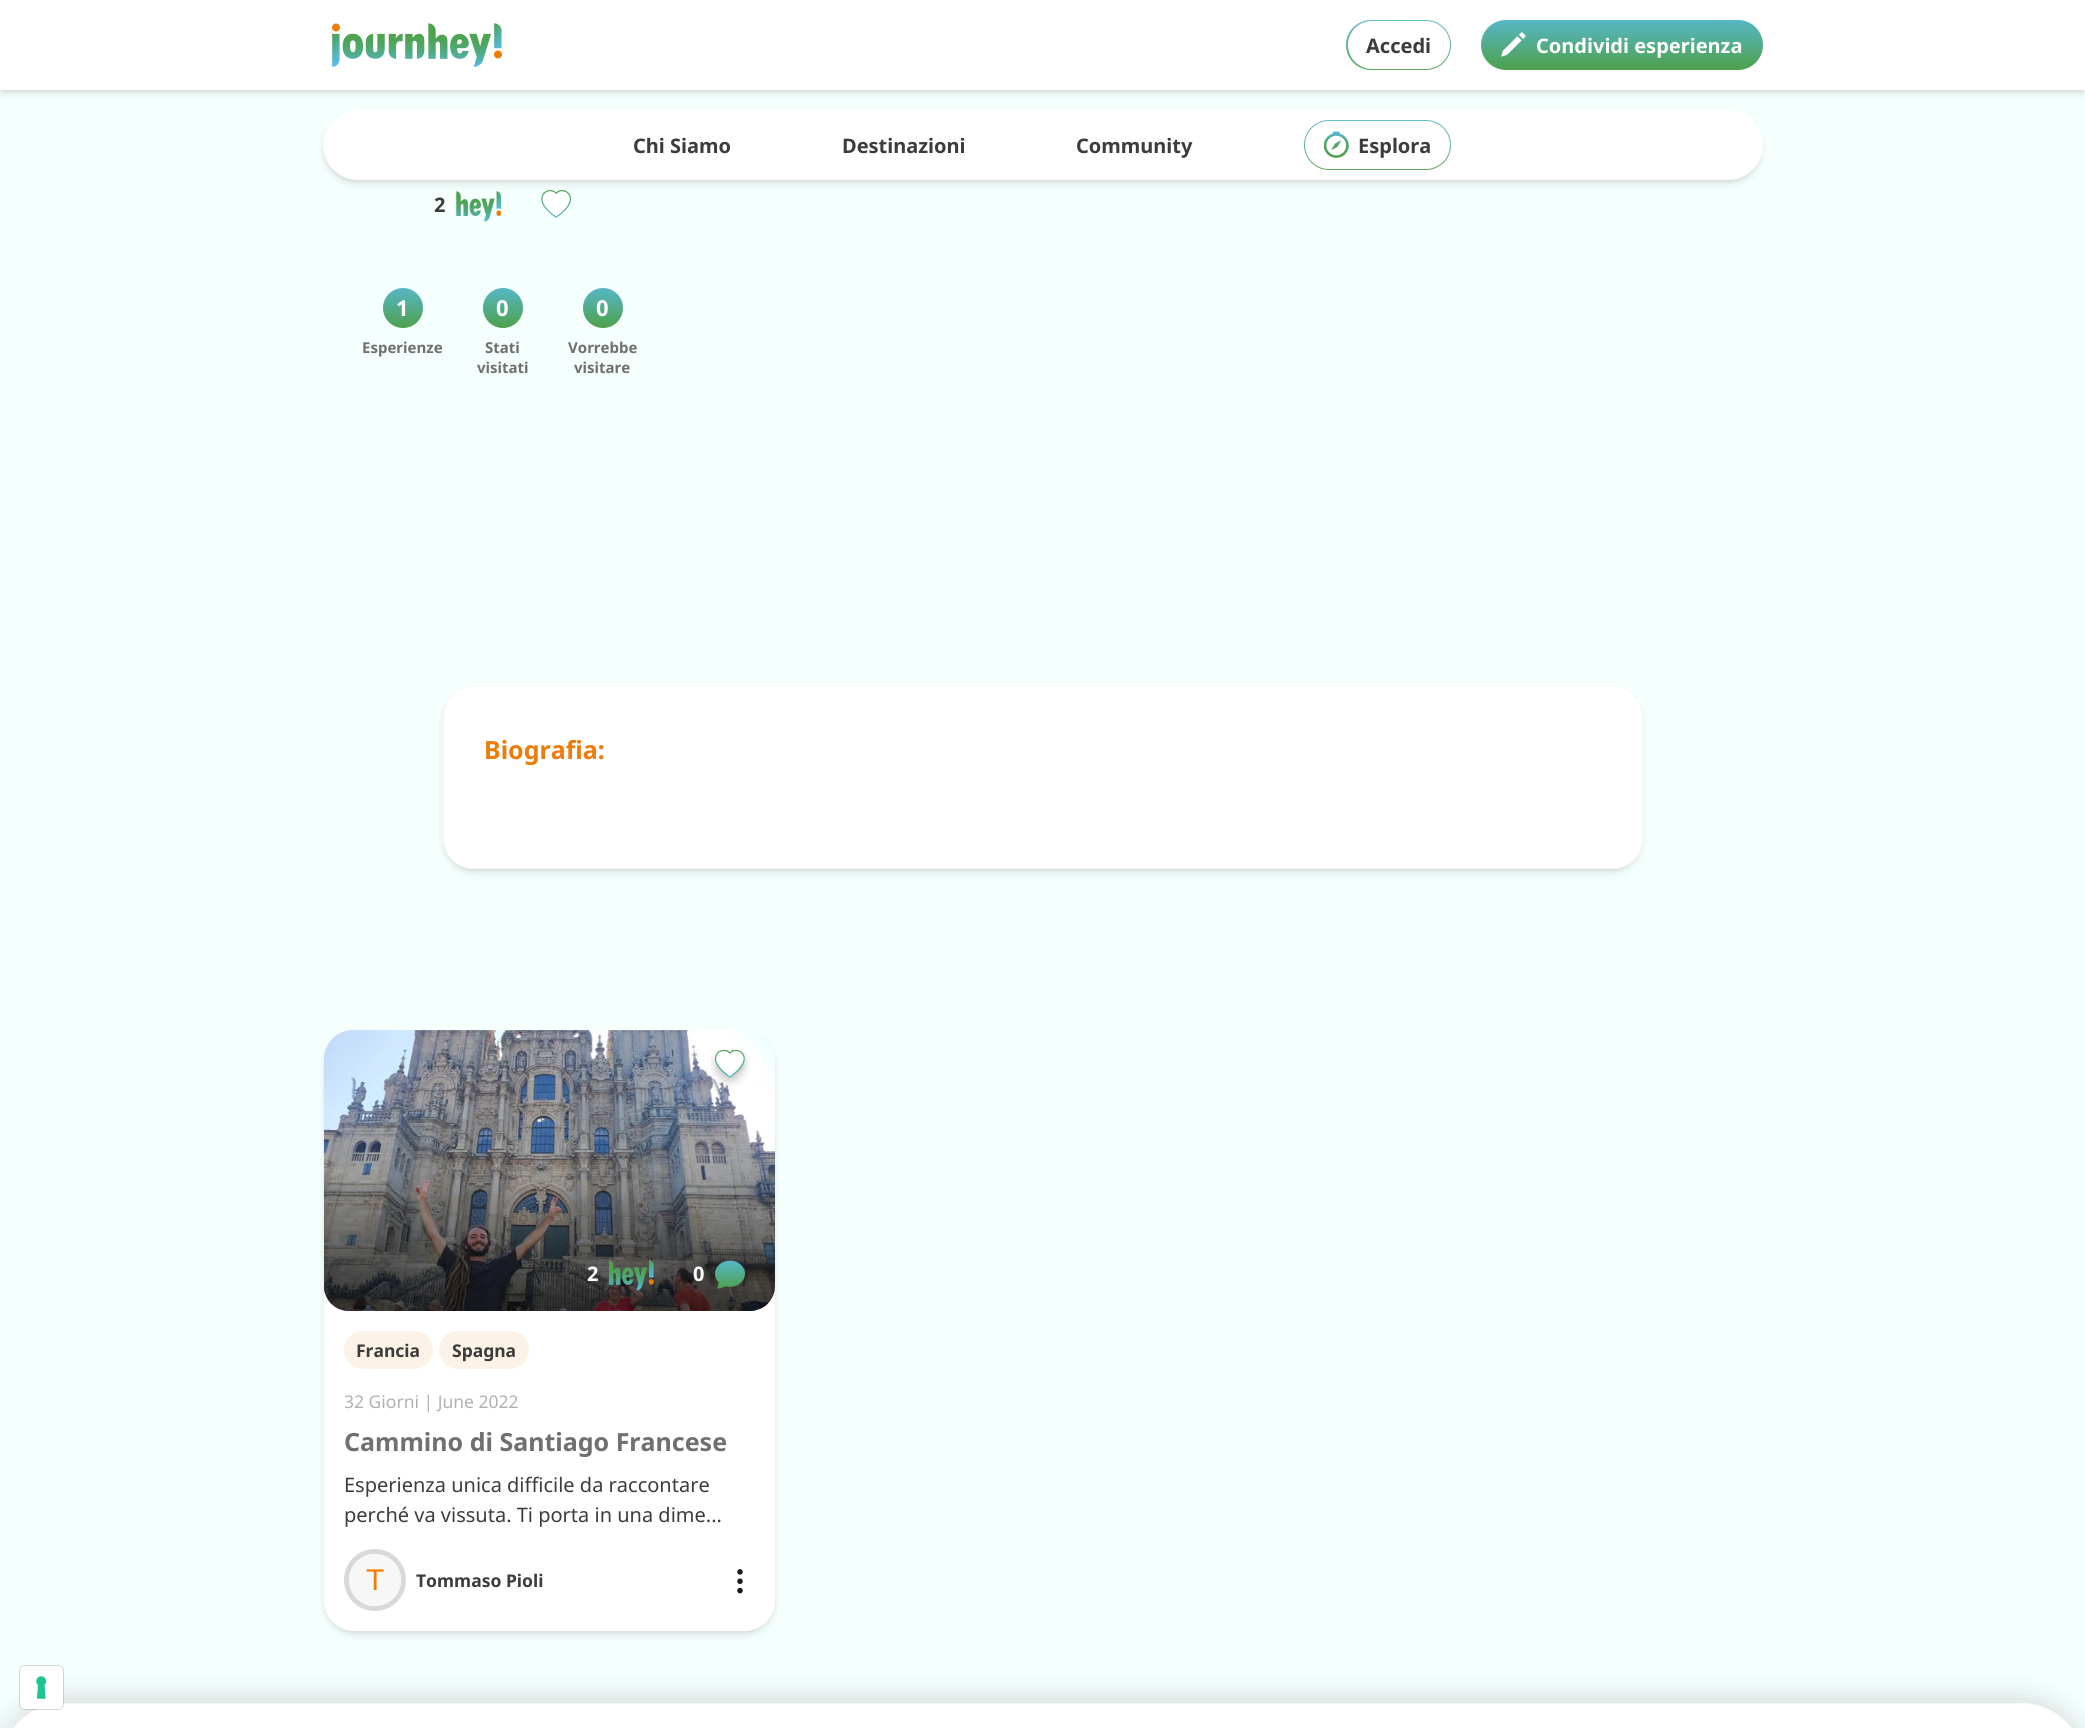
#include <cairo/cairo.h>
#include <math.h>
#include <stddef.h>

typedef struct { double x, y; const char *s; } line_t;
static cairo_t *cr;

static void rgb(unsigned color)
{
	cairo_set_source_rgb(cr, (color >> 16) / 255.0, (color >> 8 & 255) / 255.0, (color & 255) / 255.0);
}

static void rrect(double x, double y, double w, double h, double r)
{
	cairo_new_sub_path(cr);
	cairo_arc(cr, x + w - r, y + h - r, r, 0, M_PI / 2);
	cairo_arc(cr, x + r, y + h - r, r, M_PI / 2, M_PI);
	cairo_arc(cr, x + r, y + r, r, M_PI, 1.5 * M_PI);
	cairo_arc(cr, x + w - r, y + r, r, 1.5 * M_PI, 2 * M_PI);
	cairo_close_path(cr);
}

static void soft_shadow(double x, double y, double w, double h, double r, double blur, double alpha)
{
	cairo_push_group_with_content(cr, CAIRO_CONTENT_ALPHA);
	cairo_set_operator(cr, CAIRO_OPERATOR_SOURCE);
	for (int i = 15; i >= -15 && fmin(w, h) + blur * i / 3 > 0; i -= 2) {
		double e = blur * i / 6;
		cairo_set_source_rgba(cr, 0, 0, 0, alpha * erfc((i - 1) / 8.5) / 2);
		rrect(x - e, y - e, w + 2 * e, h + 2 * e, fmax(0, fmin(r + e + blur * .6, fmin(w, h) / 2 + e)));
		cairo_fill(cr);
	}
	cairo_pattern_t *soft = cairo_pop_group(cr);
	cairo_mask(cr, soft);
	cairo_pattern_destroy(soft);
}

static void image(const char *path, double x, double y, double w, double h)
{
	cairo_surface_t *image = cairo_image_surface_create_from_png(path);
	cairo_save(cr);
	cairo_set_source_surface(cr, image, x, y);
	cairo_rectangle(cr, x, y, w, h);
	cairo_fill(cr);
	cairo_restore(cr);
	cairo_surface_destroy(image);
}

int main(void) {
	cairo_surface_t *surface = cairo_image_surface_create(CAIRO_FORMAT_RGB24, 2085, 1728);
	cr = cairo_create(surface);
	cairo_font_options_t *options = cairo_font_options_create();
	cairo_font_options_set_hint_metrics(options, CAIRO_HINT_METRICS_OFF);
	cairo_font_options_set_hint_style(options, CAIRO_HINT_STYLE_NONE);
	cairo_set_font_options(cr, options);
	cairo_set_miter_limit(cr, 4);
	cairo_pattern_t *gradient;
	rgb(0xf5fffd);
	cairo_paint(cr);
	rgb(0x000000);
	soft_shadow(3, 5, 2080, 85, 0, 2.5, 0.1);
	soft_shadow(1, 6, 2083, 88, 0, 4, 0.1);
	rgb(0xffffff);
	cairo_rectangle(cr, 0, 0, 2085, 90);
	cairo_fill(cr);
	image("img/1.png", 332, 23, 170, 44);
	gradient = cairo_pattern_create_linear(1399, 20, 1399, 70);
	cairo_pattern_add_color_stop_rgba(gradient, 0, 0.337, 0.718, 0.776, 1);
	cairo_pattern_add_color_stop_rgba(gradient, 1, 0.306, 0.631, 0.294, 1);
	cairo_set_source(cr, gradient);
	cairo_pattern_destroy(gradient);
	rrect(1346, 20, 105, 50, 25);
	cairo_fill(cr);
	rgb(0xffffff);
	rrect(1348, 21, 102, 48, 24);
	cairo_fill(cr);
	cairo_set_source_rgba(cr, 1, 1, 1, 0.1);
	rrect(1346, 20, 105, 50, 25);
	cairo_fill(cr);
	gradient = cairo_pattern_create_linear(1622, 20, 1622, 70);
	cairo_pattern_add_color_stop_rgba(gradient, 0, 0.337, 0.718, 0.776, 1);
	cairo_pattern_add_color_stop_rgba(gradient, 1, 0.306, 0.631, 0.294, 1);
	cairo_set_source(cr, gradient);
	cairo_pattern_destroy(gradient);
	rrect(1481, 20, 282, 50, 25);
	cairo_fill(cr);
	image("img/2.png", 1501, 32, 25, 25);
	rgb(0x000000);
	soft_shadow(325, 115, 1435, 65, 32.5, 2.5, 0.1);
	image("img/4.png", 456, 191, 45, 31);
	image("img/5.png", 541, 190, 30, 28);
	soft_shadow(324, 116, 1437, 68, 34, 4, 0.1);
	rgb(0xffffff);
	rrect(323, 110, 1440, 70, 35);
	cairo_fill(cr);
	gradient = cairo_pattern_create_linear(1378, 120, 1378, 170);
	cairo_pattern_add_color_stop_rgba(gradient, 0, 0.337, 0.718, 0.776, 1);
	cairo_pattern_add_color_stop_rgba(gradient, 1, 0.306, 0.631, 0.294, 1);
	cairo_set_source(cr, gradient);
	cairo_pattern_destroy(gradient);
	rrect(1304, 120, 147, 50, 25);
	cairo_fill(cr);
	rgb(0xffffff);
	rrect(1305, 121, 145, 48, 24);
	cairo_fill(cr);
	cairo_set_source_rgba(cr, 1, 1, 1, 0.1);
	rrect(1304, 120, 147, 50, 25);
	cairo_fill(cr);
	image("img/3.png", 1324, 131, 25, 27);
	gradient = cairo_pattern_create_linear(403, 288, 403, 328);
	cairo_pattern_add_color_stop_rgba(gradient, 0, 0.337, 0.718, 0.776, 1);
	cairo_pattern_add_color_stop_rgba(gradient, 1, 0.306, 0.631, 0.294, 1);
	cairo_set_source(cr, gradient);
	cairo_pattern_destroy(gradient);
	cairo_arc(cr, 403, 308, 20, 0, 2 * M_PI);
	cairo_fill(cr);
	gradient = cairo_pattern_create_linear(503, 288, 503, 328);
	cairo_pattern_add_color_stop_rgba(gradient, 0, 0.337, 0.718, 0.776, 1);
	cairo_pattern_add_color_stop_rgba(gradient, 1, 0.306, 0.631, 0.294, 1);
	cairo_set_source(cr, gradient);
	cairo_pattern_destroy(gradient);
	cairo_arc(cr, 503, 308, 20, 0, 2 * M_PI);
	cairo_fill(cr);
	gradient = cairo_pattern_create_linear(603, 288, 603, 328);
	cairo_pattern_add_color_stop_rgba(gradient, 0, 0.337, 0.718, 0.776, 1);
	cairo_pattern_add_color_stop_rgba(gradient, 1, 0.306, 0.631, 0.294, 1);
	cairo_set_source(cr, gradient);
	cairo_pattern_destroy(gradient);
	cairo_arc(cr, 603, 308, 20, 0, 2 * M_PI);
	cairo_fill(cr);
	rgb(0x000000);
	soft_shadow(445, 691, 1195, 178, 28, 2.5, 0.1);
	soft_shadow(444, 693, 1197, 180, 29, 4, 0.1);
	rgb(0xffffff);
	rrect(443.5, 686.5, 1199, 182, 29.5);
	cairo_fill_preserve(cr);
	rgb(0xf7f7f7);
	cairo_set_line_width(cr, 1);
	cairo_stroke(cr);
	rgb(0x000000);
	soft_shadow(326, 1035, 447, 596, 28, 2.5, 0.1);
	soft_shadow(325, 1036, 449, 599, 29, 4, 0.1);
	rgb(0xffffff);
	rrect(324, 1030, 451, 601, 30);
	cairo_fill(cr);
	image("img/6.png", 324, 1030, 451, 281);
	cairo_save(cr);
	rrect(324, 1030, 451, 281, 25);
	cairo_clip(cr);
	gradient = cairo_pattern_create_linear(549, 1311, 549, 1030);
	cairo_pattern_add_color_stop_rgba(gradient, 0.05, 0, 0, 0, 0.6);
	cairo_pattern_add_color_stop_rgba(gradient, 0.5, 0, 0, 0, 0);
	cairo_set_source(cr, gradient);
	cairo_pattern_destroy(gradient);
	cairo_new_path(cr);
	cairo_move_to(cr, 354, 1030);
	cairo_line_to(cr, 745, 1030);
	cairo_curve_to(cr, 761.5, 1030, 775, 1043.5, 775, 1060);
	cairo_line_to(cr, 775, 1286);
	cairo_curve_to(cr, 775, 1300, 764, 1311, 750, 1311);
	cairo_line_to(cr, 349, 1311);
	cairo_curve_to(cr, 335, 1311, 324, 1300, 324, 1286);
	cairo_line_to(cr, 324, 1060);
	cairo_curve_to(cr, 324, 1043.5, 337.5, 1030, 354, 1030);
	cairo_close_path(cr);
	cairo_fill(cr);
	cairo_restore(cr);
	image("img/7.png", 710, 1049, 40, 38);
	image("img/8.png", 609, 1260, 45, 31);
	image("img/9.png", 715, 1260, 30, 29);
	rgb(0xfdf2e7);
	rrect(344, 1331, 89, 38, 19);
	cairo_fill(cr);
	rrect(439, 1331, 90, 38, 19);
	cairo_fill(cr);
	cairo_arc(cr, 375, 1580, 28.5, 0, 2 * M_PI);
	rgb(0xd9d9d9);
	cairo_set_line_width(cr, 5);
	cairo_stroke(cr);
	rgb(0xf7f7f7);
	cairo_arc(cr, 375, 1580, 26, 0, 2 * M_PI);
	cairo_fill(cr);
	image("img/10.png", 737, 1569, 6, 25);
	rgb(0x000000);
	soft_shadow(0, 1701, 2085, 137, 63, 15.5, 0.16);
	rgb(0xffffff);
	cairo_new_path(cr);
	cairo_move_to(cr, 63, 1703.5);
	cairo_line_to(cr, 2022, 1703.5);
	cairo_curve_to(cr, 2056.5, 1703.5, 2084.5, 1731.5, 2084.5, 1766);
	cairo_line_to(cr, 2084.5, 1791.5);
	cairo_line_to(cr, 0.5, 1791.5);
	cairo_line_to(cr, 0.5, 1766);
	cairo_curve_to(cr, 0.5, 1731.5, 28.5, 1703.5, 63, 1703.5);
	cairo_close_path(cr);
	cairo_fill_preserve(cr);
	rgb(0xf7f7f7);
	cairo_set_line_width(cr, 1);
	cairo_stroke(cr);
	rrect(19.5, 1665.5, 44, 44, 5.5);
	cairo_set_source_rgba(cr, 0, 0, 0, 0.15);
	cairo_stroke(cr);
	rgb(0xffffff);
	rrect(20, 1666, 43, 43, 5);
	cairo_fill(cr);
	image("img/11.png", 36, 1676, 11, 23);
	cairo_select_font_face(cr, "Noto Sans", CAIRO_FONT_SLANT_NORMAL, CAIRO_FONT_WEIGHT_BOLD);
	cairo_set_font_size(cr, 20);
	rgb(0x3c3c3b);
	cairo_move_to(cr, 1366, 53);
	cairo_show_text(cr, "Accedi");
	rgb(0xffffff);
	cairo_move_to(cr, 1536, 53);
	cairo_show_text(cr, "Condividi esperienza");
	rgb(0x3c3c3b);
	{
		static const line_t items[] = {
			{633, 153, "Chi Siamo"},
			{842, 153, "Destinazioni"},
			{1076, 153, "Community"},
			{1358, 153, "Esplora"},
			{434, 212, "2"},
		};
		for (size_t i = 0; i < sizeof items / sizeof *items; i++) {
			cairo_move_to(cr, items[i].x, items[i].y);
			cairo_show_text(cr, items[i].s);
		}
	}
	cairo_set_font_size(cr, 22);
	rgb(0xffffff);
	cairo_move_to(cr, 396, 316);
	cairo_show_text(cr, "1");
	cairo_set_font_size(cr, 15);
	rgb(0x707070);
	cairo_move_to(cr, 362, 353);
	cairo_show_text(cr, "Esperienze");
	cairo_set_font_size(cr, 22);
	rgb(0xffffff);
	cairo_move_to(cr, 496, 316);
	cairo_show_text(cr, "0");
	cairo_set_font_size(cr, 15);
	rgb(0x707070);
	cairo_move_to(cr, 485, 353);
	cairo_show_text(cr, "Stati");
	cairo_move_to(cr, 477, 373);
	cairo_show_text(cr, "visitati");
	cairo_set_font_size(cr, 22);
	rgb(0xffffff);
	cairo_move_to(cr, 596, 316);
	cairo_show_text(cr, "0");
	cairo_set_font_size(cr, 15);
	rgb(0x707070);
	cairo_move_to(cr, 568, 353);
	cairo_show_text(cr, "Vorrebbe");
	cairo_move_to(cr, 574, 373);
	cairo_show_text(cr, "visitare");
	cairo_set_font_size(cr, 25);
	rgb(0xee7c0a);
	cairo_move_to(cr, 484, 759);
	cairo_show_text(cr, "Biografia:");
	cairo_set_font_size(cr, 20);
	rgb(0xffffff);
	cairo_move_to(cr, 587, 1281);
	cairo_show_text(cr, "2");
	cairo_move_to(cr, 693, 1281);
	cairo_show_text(cr, "0");
	cairo_set_font_size(cr, 17.5);
	rgb(0x3c3c3b);
	cairo_move_to(cr, 356, 1357);
	cairo_show_text(cr, "Francia");
	cairo_move_to(cr, 452, 1357);
	cairo_show_text(cr, "Spagna");
	cairo_select_font_face(cr, "Noto Sans", CAIRO_FONT_SLANT_NORMAL, CAIRO_FONT_WEIGHT_NORMAL);
	rgb(0xb1b1b1);
	cairo_move_to(cr, 344, 1408);
	cairo_show_text(cr, "32 Giorni | June 2022");
	cairo_select_font_face(cr, "Noto Sans", CAIRO_FONT_SLANT_NORMAL, CAIRO_FONT_WEIGHT_BOLD);
	cairo_set_font_size(cr, 25);
	rgb(0x707070);
	cairo_move_to(cr, 344, 1451);
	cairo_show_text(cr, "Cammino di Santiago Francese");
	cairo_select_font_face(cr, "Noto Sans", CAIRO_FONT_SLANT_NORMAL, CAIRO_FONT_WEIGHT_NORMAL);
	cairo_set_font_size(cr, 20);
	rgb(0x3c3c3b);
	cairo_move_to(cr, 344, 1492);
	cairo_show_text(cr, "Esperienza unica difficile da raccontare");
	cairo_move_to(cr, 344, 1522);
	cairo_show_text(cr, "perché va vissuta. Ti porta in una dime...");
	cairo_select_font_face(cr, "Liberation Sans", CAIRO_FONT_SLANT_NORMAL, CAIRO_FONT_WEIGHT_NORMAL);
	cairo_set_font_size(cr, 30);
	rgb(0xf27c00);
	cairo_move_to(cr, 366, 1590);
	cairo_show_text(cr, "T");
	cairo_select_font_face(cr, "Noto Sans", CAIRO_FONT_SLANT_NORMAL, CAIRO_FONT_WEIGHT_BOLD);
	cairo_set_font_size(cr, 17.5);
	rgb(0x3c3c3b);
	cairo_move_to(cr, 416, 1587);
	cairo_show_text(cr, "Tommaso Pioli");
	cairo_surface_write_to_png(surface, "page.png");
	cairo_font_options_destroy(options);
	cairo_destroy(cr);
	cairo_surface_destroy(surface);
	return 0;
}
